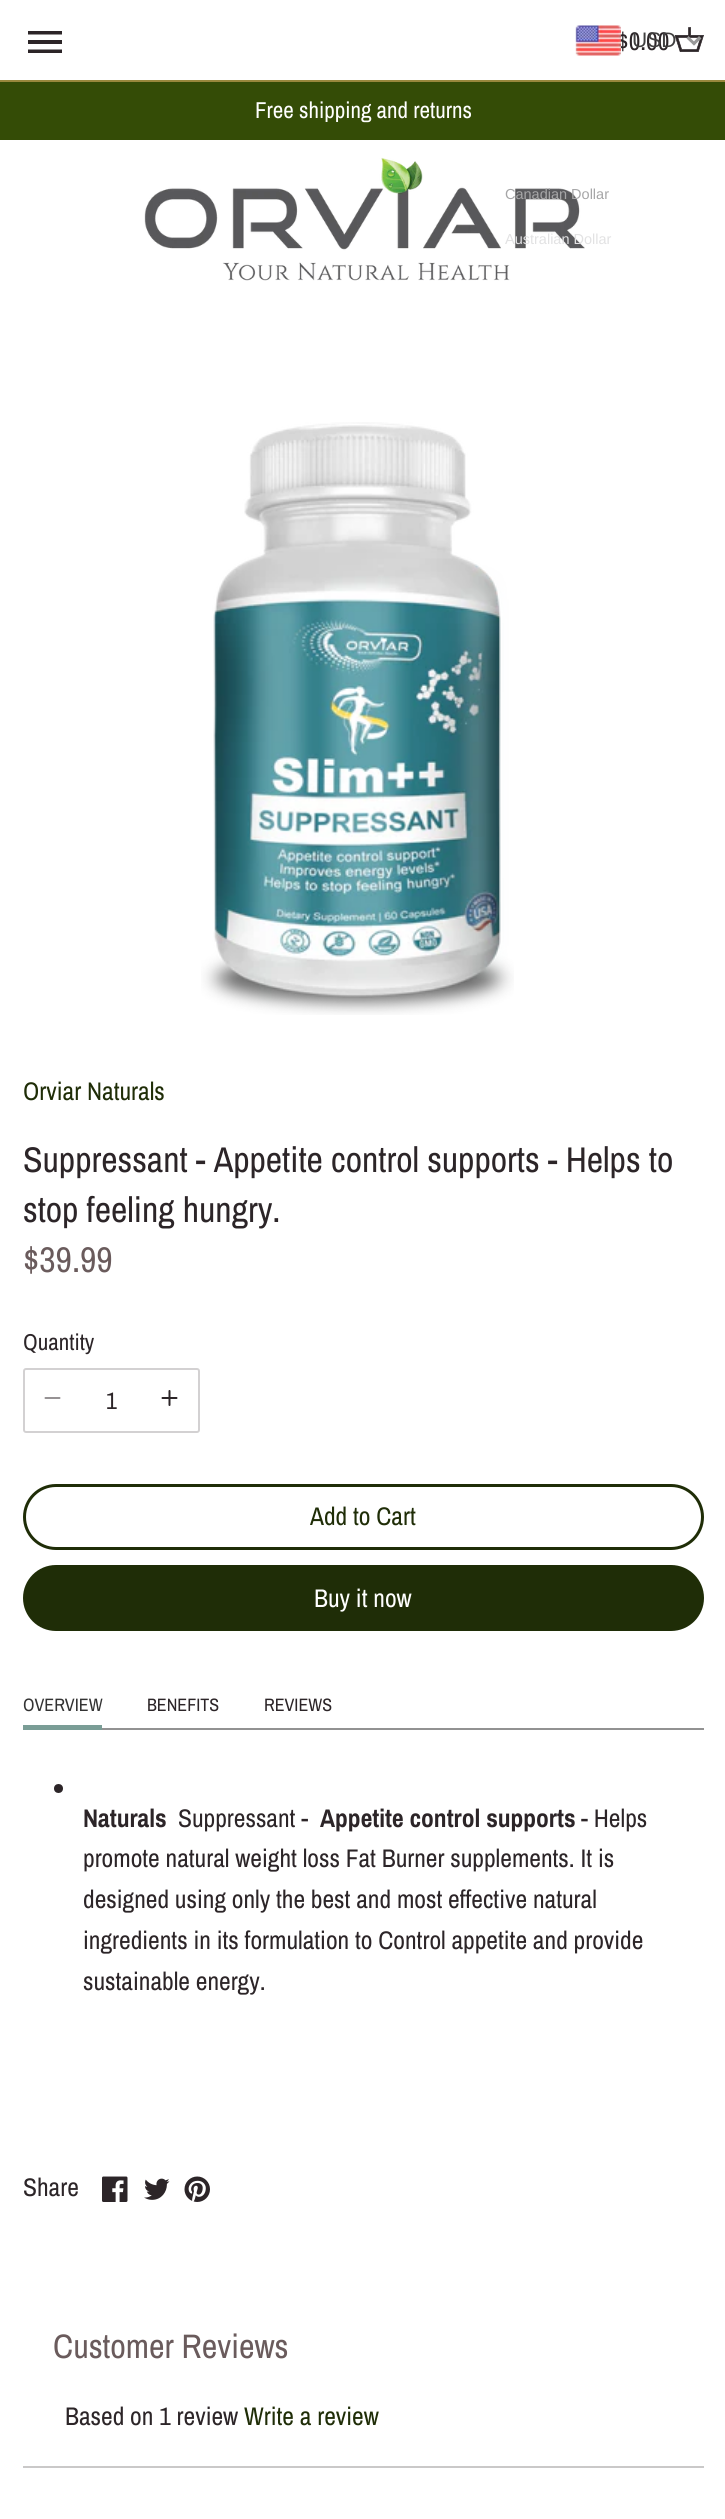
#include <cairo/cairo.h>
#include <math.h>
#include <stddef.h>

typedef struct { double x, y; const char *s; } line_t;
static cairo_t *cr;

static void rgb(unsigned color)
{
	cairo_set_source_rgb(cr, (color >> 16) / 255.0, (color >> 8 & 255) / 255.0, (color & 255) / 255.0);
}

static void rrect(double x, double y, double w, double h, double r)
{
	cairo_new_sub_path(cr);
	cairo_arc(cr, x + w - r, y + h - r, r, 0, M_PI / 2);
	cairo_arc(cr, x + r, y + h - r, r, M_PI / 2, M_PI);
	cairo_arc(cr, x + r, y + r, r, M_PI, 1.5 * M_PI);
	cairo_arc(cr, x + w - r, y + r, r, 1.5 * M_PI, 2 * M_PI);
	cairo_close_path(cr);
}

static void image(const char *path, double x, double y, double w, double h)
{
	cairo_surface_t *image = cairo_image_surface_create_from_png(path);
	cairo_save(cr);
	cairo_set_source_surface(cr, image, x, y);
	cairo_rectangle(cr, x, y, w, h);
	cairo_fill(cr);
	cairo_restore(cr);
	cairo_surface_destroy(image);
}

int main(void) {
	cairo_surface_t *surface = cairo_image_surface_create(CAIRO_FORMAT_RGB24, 725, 2519);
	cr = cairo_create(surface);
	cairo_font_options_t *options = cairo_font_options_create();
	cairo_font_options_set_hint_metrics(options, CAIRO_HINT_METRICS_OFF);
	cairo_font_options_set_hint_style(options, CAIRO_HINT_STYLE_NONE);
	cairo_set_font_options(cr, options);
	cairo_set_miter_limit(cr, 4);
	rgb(0xffffff);
	cairo_paint(cr);
	rgb(0x344c06);
	cairo_rectangle(cr, 0, 82, 725, 58);
	cairo_fill(cr);
	image("img/1.png", 144, 157, 441, 124);
	rgb(0x99883c);
	cairo_rectangle(cr, 0, 80, 725, 2);
	cairo_fill(cr);
	rgb(0x2c2528);
	cairo_new_path(cr);
	cairo_move_to(cr, 28, 53);
	cairo_line_to(cr, 62, 53);
	cairo_line_to(cr, 62, 49.5);
	cairo_line_to(cr, 28, 49.5);
	cairo_close_path(cr);
	cairo_move_to(cr, 28, 44);
	cairo_line_to(cr, 62, 44);
	cairo_line_to(cr, 62, 40);
	cairo_line_to(cr, 28, 40);
	cairo_close_path(cr);
	cairo_move_to(cr, 28, 31);
	cairo_line_to(cr, 28, 34.5);
	cairo_line_to(cr, 62, 34.5);
	cairo_line_to(cr, 62, 31);
	cairo_close_path(cr);
	cairo_fill(cr);
	image("img/2.png", 675, 27, 29, 25);
	rgb(0x999999);
	cairo_new_path(cr);
	cairo_move_to(cr, 699, 36);
	cairo_line_to(cr, 701.5, 38.5);
	cairo_line_to(cr, 694, 45.5);
	cairo_line_to(cr, 692, 43.5);
	cairo_close_path(cr);
	cairo_fill(cr);
	cairo_new_path(cr);
	cairo_move_to(cr, 688.5, 36);
	cairo_line_to(cr, 696, 43.5);
	cairo_line_to(cr, 694, 45.5);
	cairo_line_to(cr, 686.5, 38.5);
	cairo_close_path(cr);
	cairo_fill(cr);
	image("img/4.png", 201, 422, 313, 593);
	rrect(24, 1369, 175, 63, 2);
	rgb(0xd3d1d2);
	cairo_stroke(cr);
	cairo_new_path(cr);
	cairo_move_to(cr, 45.5, 1398);
	cairo_line_to(cr, 59.5, 1398);
	rgb(0x969294);
	cairo_set_line_cap(cr, CAIRO_LINE_CAP_ROUND);
	cairo_set_line_join(cr, CAIRO_LINE_JOIN_ROUND);
	cairo_stroke(cr);
	cairo_new_path(cr);
	cairo_move_to(cr, 169.5, 1391);
	cairo_line_to(cr, 169.5, 1405);
	cairo_move_to(cr, 162.5, 1398);
	cairo_line_to(cr, 176.5, 1398);
	rgb(0x2c2528);
	cairo_stroke(cr);
	rrect(24.5, 1485.5, 678, 63, 31.5);
	rgb(0x1f2d07);
	cairo_set_line_width(cr, 3);
	cairo_set_line_cap(cr, CAIRO_LINE_CAP_BUTT);
	cairo_set_line_join(cr, CAIRO_LINE_JOIN_MITER);
	cairo_stroke(cr);
	rrect(23, 1565, 681, 66, 33);
	cairo_fill(cr);
	rgb(0x929292);
	cairo_rectangle(cr, 102, 1728, 602, 2);
	cairo_fill(cr);
	rgb(0x7a9d96);
	cairo_rectangle(cr, 23, 1725, 79, 5);
	cairo_fill(cr);
	rgb(0x2c2528);
	cairo_arc(cr, 58.5, 1788.5, 4.5, 0, 2 * M_PI);
	cairo_fill(cr);
	image("img/5.png", 102, 2176, 26, 26);
	image("img/6.png", 144, 2178, 26, 22);
	image("img/7.png", 184, 2176, 26, 26);
	rgb(0xcac9c9);
	cairo_rectangle(cr, 23, 2466, 681, 2);
	cairo_fill(cr);
	cairo_select_font_face(cr, "Archivo Narrow", CAIRO_FONT_SLANT_NORMAL, CAIRO_FONT_WEIGHT_NORMAL);
	cairo_set_font_size(cr, 23);
	rgb(0xffffff);
	cairo_move_to(cr, 255, 118);
	cairo_show_text(cr, "Free shipping and returns");
	cairo_set_font_size(cr, 25.5);
	rgb(0x2c2528);
	cairo_move_to(cr, 617, 50);
	cairo_show_text(cr, "$0.00");
	image("img/3.png", 575, 25, 46, 31);
	cairo_select_font_face(cr, "Liberation Sans", CAIRO_FONT_SLANT_NORMAL, CAIRO_FONT_WEIGHT_NORMAL);
	cairo_set_font_size(cr, 21);
	rgb(0x403f3f);
	cairo_move_to(cr, 632, 47);
	cairo_show_text(cr, "USD");
	cairo_set_font_size(cr, 14.5);
	rgb(0xa6a6a7);
	cairo_move_to(cr, 505, 199);
	cairo_show_text(cr, "Canadian Dollar");
	rgb(0xe2e2e3);
	cairo_move_to(cr, 505, 244);
	cairo_show_text(cr, "Australian Dollar");
	cairo_select_font_face(cr, "Archivo Narrow", CAIRO_FONT_SLANT_NORMAL, CAIRO_FONT_WEIGHT_NORMAL);
	cairo_set_font_size(cr, 25.5);
	rgb(0x1f2d07);
	cairo_move_to(cr, 23, 1100);
	cairo_show_text(cr, "Orviar Naturals");
	cairo_set_font_size(cr, 35.75);
	rgb(0x2c2528);
	cairo_move_to(cr, 23, 1172);
	cairo_show_text(cr, "Suppressant - Appetite control supports - Helps to");
	cairo_move_to(cr, 23, 1222);
	cairo_show_text(cr, "stop feeling hungry.");
	rgb(0x6a5b5c);
	cairo_move_to(cr, 23, 1272);
	cairo_show_text(cr, "$39.99");
	cairo_set_font_size(cr, 23);
	rgb(0x2c2528);
	cairo_move_to(cr, 23, 1350);
	cairo_show_text(cr, "Quantity");
	cairo_set_font_size(cr, 24);
	cairo_move_to(cr, 106, 1409);
	cairo_show_text(cr, "1");
	cairo_set_font_size(cr, 25.5);
	rgb(0x1f2d07);
	cairo_move_to(cr, 310, 1525);
	cairo_show_text(cr, "Add to Cart");
	rgb(0xffffff);
	cairo_move_to(cr, 314, 1607);
	cairo_show_text(cr, "Buy it now");
	cairo_set_font_size(cr, 18);
	rgb(0x333333);
	cairo_move_to(cr, 23, 1711);
	cairo_show_text(cr, "OVERVIEW");
	rgb(0x2c2528);
	cairo_move_to(cr, 147, 1711);
	cairo_show_text(cr, "BENEFITS");
	cairo_move_to(cr, 264, 1711);
	cairo_show_text(cr, "REVIEWS");
	cairo_select_font_face(cr, "Archivo Narrow", CAIRO_FONT_SLANT_NORMAL, CAIRO_FONT_WEIGHT_BOLD);
	cairo_set_font_size(cr, 25.5);
	cairo_move_to(cr, 83, 1827);
	cairo_show_text(cr, "Naturals");
	cairo_select_font_face(cr, "Archivo Narrow", CAIRO_FONT_SLANT_NORMAL, CAIRO_FONT_WEIGHT_NORMAL);
	cairo_move_to(cr, 178, 1827);
	cairo_show_text(cr, "Suppressant -");
	cairo_select_font_face(cr, "Archivo Narrow", CAIRO_FONT_SLANT_NORMAL, CAIRO_FONT_WEIGHT_BOLD);
	cairo_move_to(cr, 320, 1827);
	cairo_show_text(cr, "Appetite control supports");
	cairo_select_font_face(cr, "Archivo Narrow", CAIRO_FONT_SLANT_NORMAL, CAIRO_FONT_WEIGHT_NORMAL);
	{
		static const line_t items[] = {
			{581, 1827, "- Helps"},
			{83, 1867, "promote natural weight loss Fat Burner supplements. It is"},
			{83, 1908, "designed using only the best and most effective natural"},
			{83, 1949, "ingredients in its formulation to Control appetite and provide"},
			{83, 1990, "sustainable energy."},
			{23, 2196, "Share"},
		};
		for (size_t i = 0; i < sizeof items / sizeof *items; i++) {
			cairo_move_to(cr, items[i].x, items[i].y);
			cairo_show_text(cr, items[i].s);
		}
	}
	cairo_set_font_size(cr, 34);
	rgb(0x6a5b5c);
	cairo_move_to(cr, 53, 2358);
	cairo_show_text(cr, "Customer Reviews");
	cairo_set_font_size(cr, 25.5);
	rgb(0x2c2528);
	cairo_move_to(cr, 65, 2425);
	cairo_show_text(cr, "Based on 1 review");
	rgb(0x1f2d07);
	cairo_move_to(cr, 244, 2425);
	cairo_show_text(cr, "Write a review");
	cairo_surface_write_to_png(surface, "page.png");
	cairo_font_options_destroy(options);
	cairo_destroy(cr);
	cairo_surface_destroy(surface);
	return 0;
}
